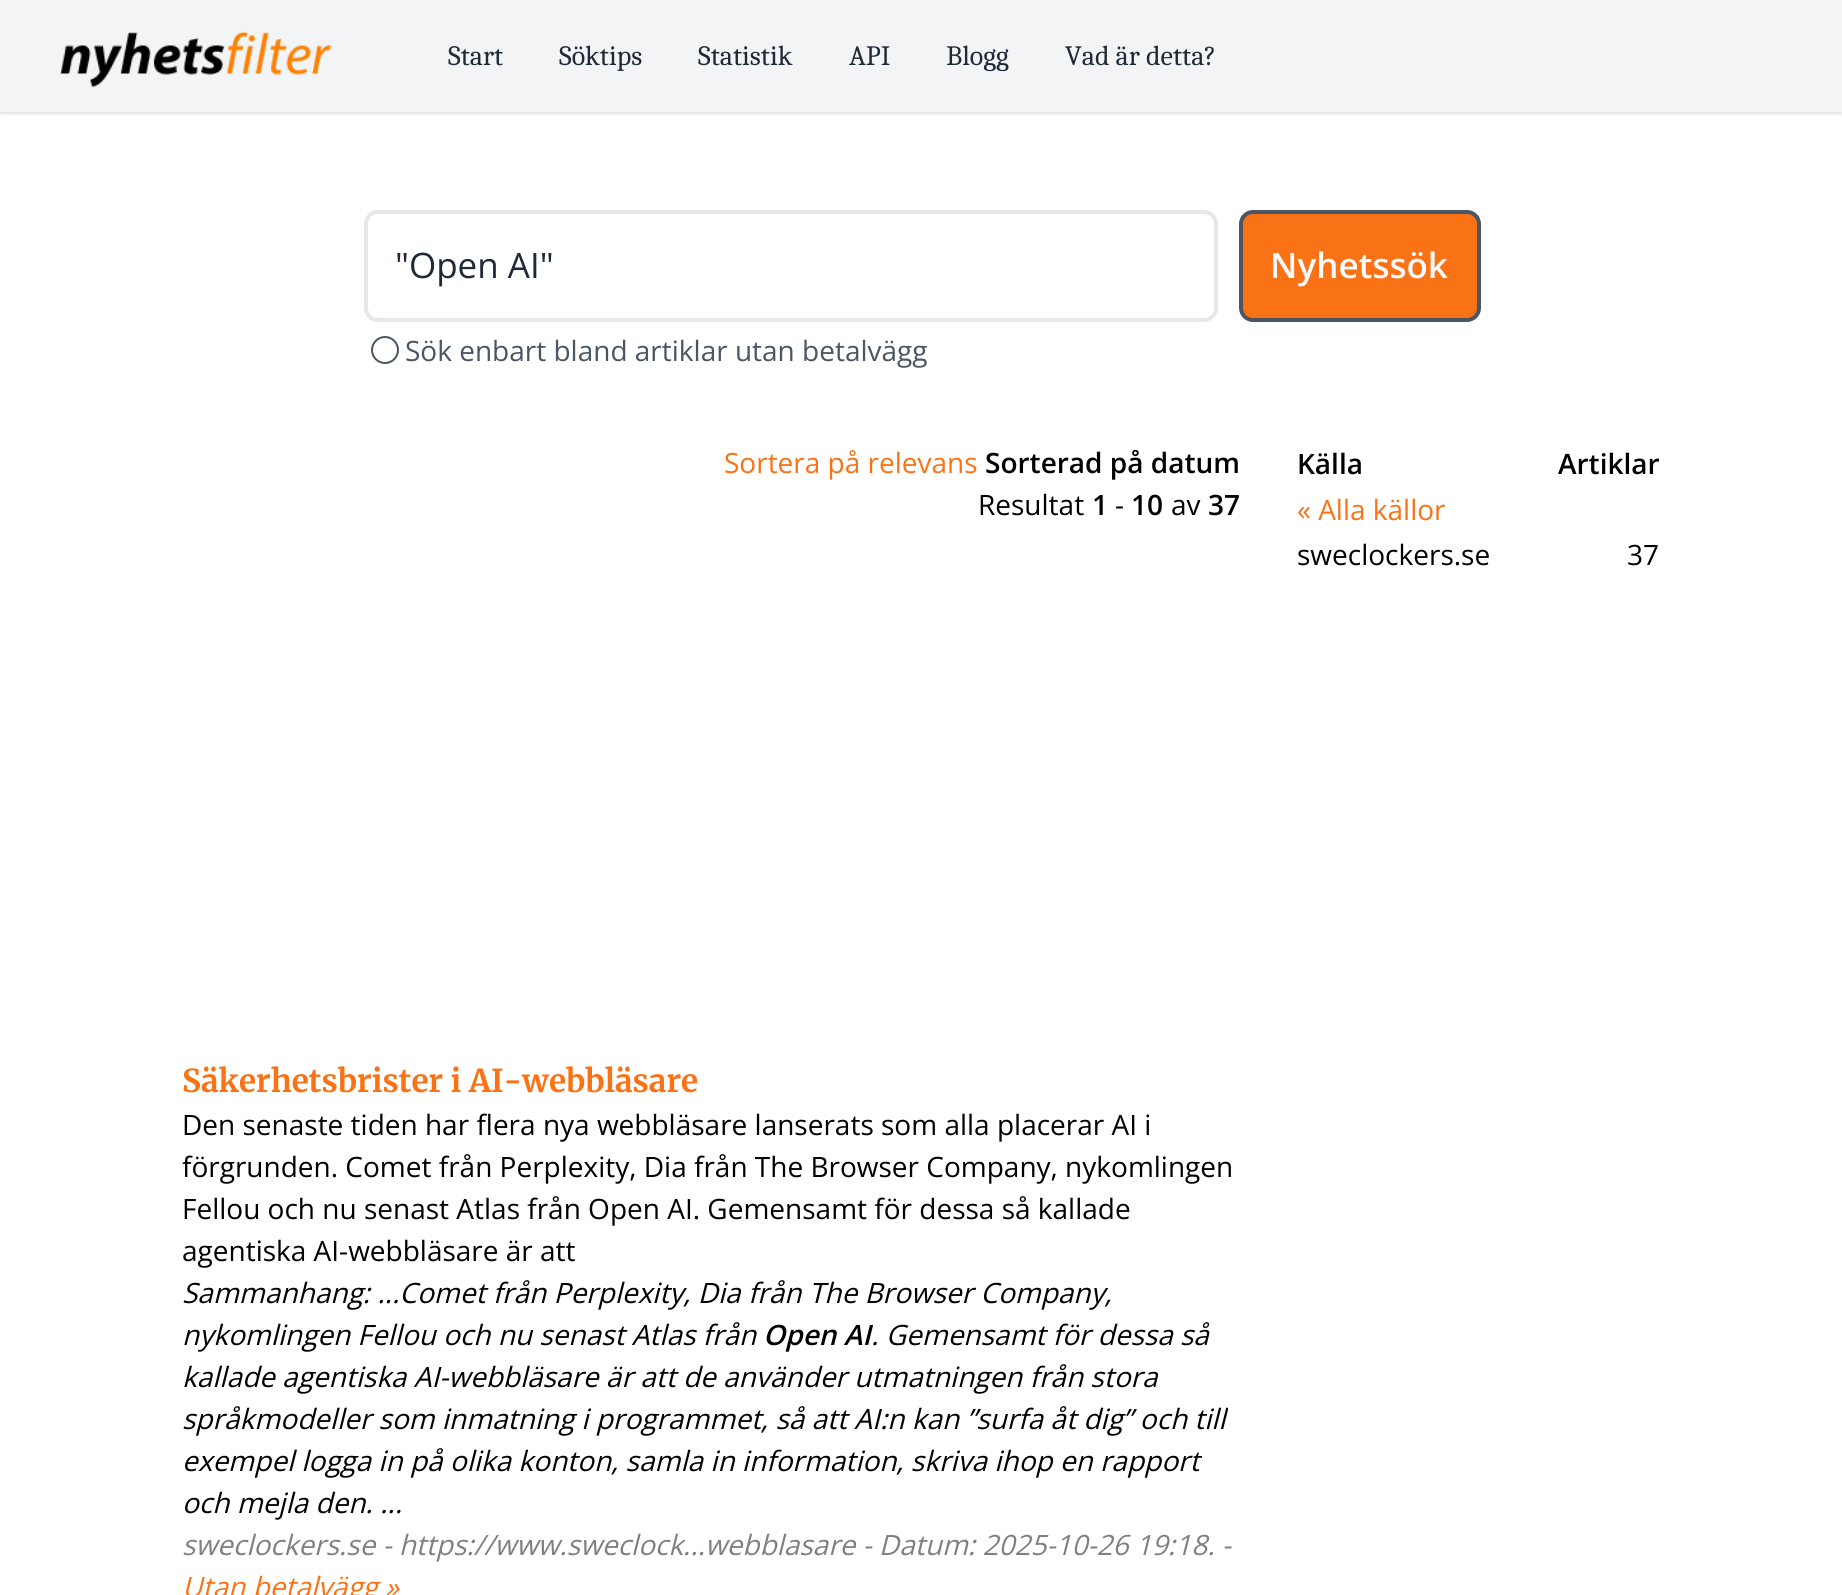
#include <cairo/cairo.h>
#include <math.h>
#include <stddef.h>

typedef struct { double x, y; const char *s; } line_t;
static cairo_t *cr;

static void rgb(unsigned color)
{
	cairo_set_source_rgb(cr, (color >> 16) / 255.0, (color >> 8 & 255) / 255.0, (color & 255) / 255.0);
}

static void rrect(double x, double y, double w, double h, double r)
{
	cairo_new_sub_path(cr);
	cairo_arc(cr, x + w - r, y + h - r, r, 0, M_PI / 2);
	cairo_arc(cr, x + r, y + h - r, r, M_PI / 2, M_PI);
	cairo_arc(cr, x + r, y + r, r, M_PI, 1.5 * M_PI);
	cairo_arc(cr, x + w - r, y + r, r, 1.5 * M_PI, 2 * M_PI);
	cairo_close_path(cr);
}

static void soft_shadow(double x, double y, double w, double h, double r, double blur, double alpha)
{
	cairo_push_group_with_content(cr, CAIRO_CONTENT_ALPHA);
	cairo_set_operator(cr, CAIRO_OPERATOR_SOURCE);
	for (int i = 15; i >= -15 && fmin(w, h) + blur * i / 3 > 0; i -= 2) {
		double e = blur * i / 6;
		cairo_set_source_rgba(cr, 0, 0, 0, alpha * erfc((i - 1) / 8.5) / 2);
		rrect(x - e, y - e, w + 2 * e, h + 2 * e, fmax(0, fmin(r + e + blur * .6, fmin(w, h) / 2 + e)));
		cairo_fill(cr);
	}
	cairo_pattern_t *soft = cairo_pop_group(cr);
	cairo_mask(cr, soft);
	cairo_pattern_destroy(soft);
}

static void image(const char *path, double x, double y, double w, double h)
{
	cairo_surface_t *image = cairo_image_surface_create_from_png(path);
	cairo_save(cr);
	cairo_set_source_surface(cr, image, x, y);
	cairo_rectangle(cr, x, y, w, h);
	cairo_fill(cr);
	cairo_restore(cr);
	cairo_surface_destroy(image);
}

int main(void) {
	cairo_surface_t *surface = cairo_image_surface_create(CAIRO_FORMAT_RGB24, 1842, 1595);
	cr = cairo_create(surface);
	cairo_font_options_t *options = cairo_font_options_create();
	cairo_font_options_set_hint_metrics(options, CAIRO_HINT_METRICS_OFF);
	cairo_font_options_set_hint_style(options, CAIRO_HINT_STYLE_NONE);
	cairo_set_font_options(cr, options);
	cairo_set_miter_limit(cr, 4);
	rgb(0xffffff);
	cairo_paint(cr);
	rgb(0x000000);
	soft_shadow(2, 4, 1839, 108, 0, 2, 0.1);
	soft_shadow(0, 2, 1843, 112, 0, 2.5, 0.1);
	rgb(0xf3f4f6);
	cairo_rectangle(cr, 0, 0, 1842, 112);
	cairo_fill(cr);
	image("img/1.png", 60, 31, 272, 57);
	rrect(366, 212, 850, 108, 12);
	rgb(0xe5e7eb);
	cairo_set_line_width(cr, 4);
	cairo_stroke(cr);
	rgb(0xf97316);
	rrect(1241, 212, 238, 108, 12);
	cairo_fill_preserve(cr);
	rgb(0x4b5563);
	cairo_stroke(cr);
	cairo_arc(cr, 385, 350, 13, 0, 2 * M_PI);
	cairo_set_line_width(cr, 2);
	cairo_stroke(cr);
	cairo_select_font_face(cr, "Caladea", CAIRO_FONT_SLANT_NORMAL, CAIRO_FONT_WEIGHT_NORMAL);
	cairo_set_font_size(cr, 28);
	rgb(0x1f2937);
	{
		static const line_t items[] = {
			{448, 65, "Start"},
			{559, 65, "Söktips"},
			{698, 65, "Statistik"},
			{849, 65, "API"},
			{946, 65, "Blogg"},
			{1065, 65, "Vad är detta?"},
		};
		for (size_t i = 0; i < sizeof items / sizeof *items; i++) {
			cairo_move_to(cr, items[i].x, items[i].y);
			cairo_show_text(cr, items[i].s);
		}
	}
	cairo_select_font_face(cr, "Open Sans", CAIRO_FONT_SLANT_NORMAL, CAIRO_FONT_WEIGHT_NORMAL);
	cairo_set_font_size(cr, 35);
	cairo_move_to(cr, 395, 278);
	cairo_show_text(cr, "\"Open AI\"");
	cairo_select_font_face(cr, "Open Sans SemiBold", CAIRO_FONT_SLANT_NORMAL, CAIRO_FONT_WEIGHT_NORMAL);
	rgb(0xf9fafb);
	cairo_move_to(cr, 1270, 278);
	cairo_show_text(cr, "Nyhetssök");
	cairo_select_font_face(cr, "Open Sans", CAIRO_FONT_SLANT_NORMAL, CAIRO_FONT_WEIGHT_NORMAL);
	cairo_set_font_size(cr, 28);
	rgb(0x4b5563);
	cairo_move_to(cr, 405, 361);
	cairo_show_text(cr, "Sök enbart bland artiklar utan betalvägg");
	rgb(0xf97316);
	cairo_move_to(cr, 724, 473);
	cairo_show_text(cr, "Sortera på relevans");
	cairo_select_font_face(cr, "Open Sans SemiBold", CAIRO_FONT_SLANT_NORMAL, CAIRO_FONT_WEIGHT_NORMAL);
	rgb(0x000000);
	cairo_move_to(cr, 985, 473);
	cairo_show_text(cr, "Sorterad på datum");
	cairo_select_font_face(cr, "Open Sans", CAIRO_FONT_SLANT_NORMAL, CAIRO_FONT_WEIGHT_NORMAL);
	cairo_move_to(cr, 978, 515);
	cairo_show_text(cr, "Resultat");
	cairo_select_font_face(cr, "Open Sans SemiBold", CAIRO_FONT_SLANT_NORMAL, CAIRO_FONT_WEIGHT_NORMAL);
	cairo_move_to(cr, 1092, 515);
	cairo_show_text(cr, "1");
	cairo_select_font_face(cr, "Open Sans", CAIRO_FONT_SLANT_NORMAL, CAIRO_FONT_WEIGHT_NORMAL);
	cairo_move_to(cr, 1115, 515);
	cairo_show_text(cr, "-");
	cairo_select_font_face(cr, "Open Sans SemiBold", CAIRO_FONT_SLANT_NORMAL, CAIRO_FONT_WEIGHT_NORMAL);
	cairo_move_to(cr, 1131, 515);
	cairo_show_text(cr, "10");
	cairo_select_font_face(cr, "Open Sans", CAIRO_FONT_SLANT_NORMAL, CAIRO_FONT_WEIGHT_NORMAL);
	cairo_move_to(cr, 1171, 515);
	cairo_show_text(cr, "av");
	cairo_select_font_face(cr, "Open Sans SemiBold", CAIRO_FONT_SLANT_NORMAL, CAIRO_FONT_WEIGHT_NORMAL);
	cairo_move_to(cr, 1208, 515);
	cairo_show_text(cr, "37");
	cairo_select_font_face(cr, "Merriweather", CAIRO_FONT_SLANT_NORMAL, CAIRO_FONT_WEIGHT_BOLD);
	cairo_set_font_size(cr, 31.5);
	rgb(0xf97316);
	cairo_move_to(cr, 182, 1092);
	cairo_show_text(cr, "Säkerhetsbrister i AI-webbläsare");
	cairo_select_font_face(cr, "Open Sans", CAIRO_FONT_SLANT_NORMAL, CAIRO_FONT_WEIGHT_NORMAL);
	cairo_set_font_size(cr, 28);
	rgb(0x000000);
	{
		static const line_t items[] = {
			{182, 1135, "Den senaste tiden har flera nya webbläsare lanserats som alla placerar AI i"},
			{182, 1177, "förgrunden. Comet från Perplexity, Dia från The Browser Company, nykomlingen"},
			{182, 1219, "Fellou och nu senast Atlas från Open AI. Gemensamt för dessa så kallade"},
			{182, 1261, "agentiska AI-webbläsare är att"},
		};
		for (size_t i = 0; i < sizeof items / sizeof *items; i++) {
			cairo_move_to(cr, items[i].x, items[i].y);
			cairo_show_text(cr, items[i].s);
		}
	}
	cairo_select_font_face(cr, "Open Sans", CAIRO_FONT_SLANT_ITALIC, CAIRO_FONT_WEIGHT_NORMAL);
	cairo_move_to(cr, 182, 1303);
	cairo_show_text(cr, "Sammanhang: ...Comet från Perplexity, Dia från The Browser Company,");
	cairo_move_to(cr, 182, 1345);
	cairo_show_text(cr, "nykomlingen Fellou och nu senast Atlas från");
	cairo_select_font_face(cr, "Open Sans SemiBold", CAIRO_FONT_SLANT_ITALIC, CAIRO_FONT_WEIGHT_NORMAL);
	cairo_move_to(cr, 763, 1345);
	cairo_show_text(cr, "Open AI");
	cairo_select_font_face(cr, "Open Sans", CAIRO_FONT_SLANT_ITALIC, CAIRO_FONT_WEIGHT_NORMAL);
	{
		static const line_t items[] = {
			{871, 1345, ". Gemensamt för dessa så"},
			{182, 1387, "kallade agentiska AI-webbläsare är att de använder utmatningen från stora"},
			{182, 1429, "språkmodeller som inmatning i programmet, så att AI:n kan ”surfa åt dig” och till"},
			{182, 1471, "exempel logga in på olika konton, samla in information, skriva ihop en rapport"},
			{182, 1513, "och mejla den. ..."},
		};
		for (size_t i = 0; i < sizeof items / sizeof *items; i++) {
			cairo_move_to(cr, items[i].x, items[i].y);
			cairo_show_text(cr, items[i].s);
		}
	}
	rgb(0x808080);
	cairo_move_to(cr, 182, 1555);
	cairo_show_text(cr, "sweclockers.se - https://www.sweclock...webblasare - Datum: 2025-10-26 19:18. -");
	rgb(0xf97316);
	cairo_move_to(cr, 182, 1597);
	cairo_show_text(cr, "Utan betalvägg »");
	cairo_select_font_face(cr, "Open Sans SemiBold", CAIRO_FONT_SLANT_NORMAL, CAIRO_FONT_WEIGHT_NORMAL);
	rgb(0x000000);
	cairo_move_to(cr, 1297, 474);
	cairo_show_text(cr, "Källa");
	cairo_move_to(cr, 1558, 474);
	cairo_show_text(cr, "Artiklar");
	cairo_select_font_face(cr, "Open Sans", CAIRO_FONT_SLANT_NORMAL, CAIRO_FONT_WEIGHT_NORMAL);
	rgb(0xf97316);
	cairo_move_to(cr, 1297, 520);
	cairo_show_text(cr, "« Alla källor");
	rgb(0x000000);
	cairo_move_to(cr, 1297, 565);
	cairo_show_text(cr, "sweclockers.se");
	cairo_move_to(cr, 1627, 565);
	cairo_show_text(cr, "37");
	cairo_surface_write_to_png(surface, "page.png");
	cairo_font_options_destroy(options);
	cairo_destroy(cr);
	cairo_surface_destroy(surface);
	return 0;
}
